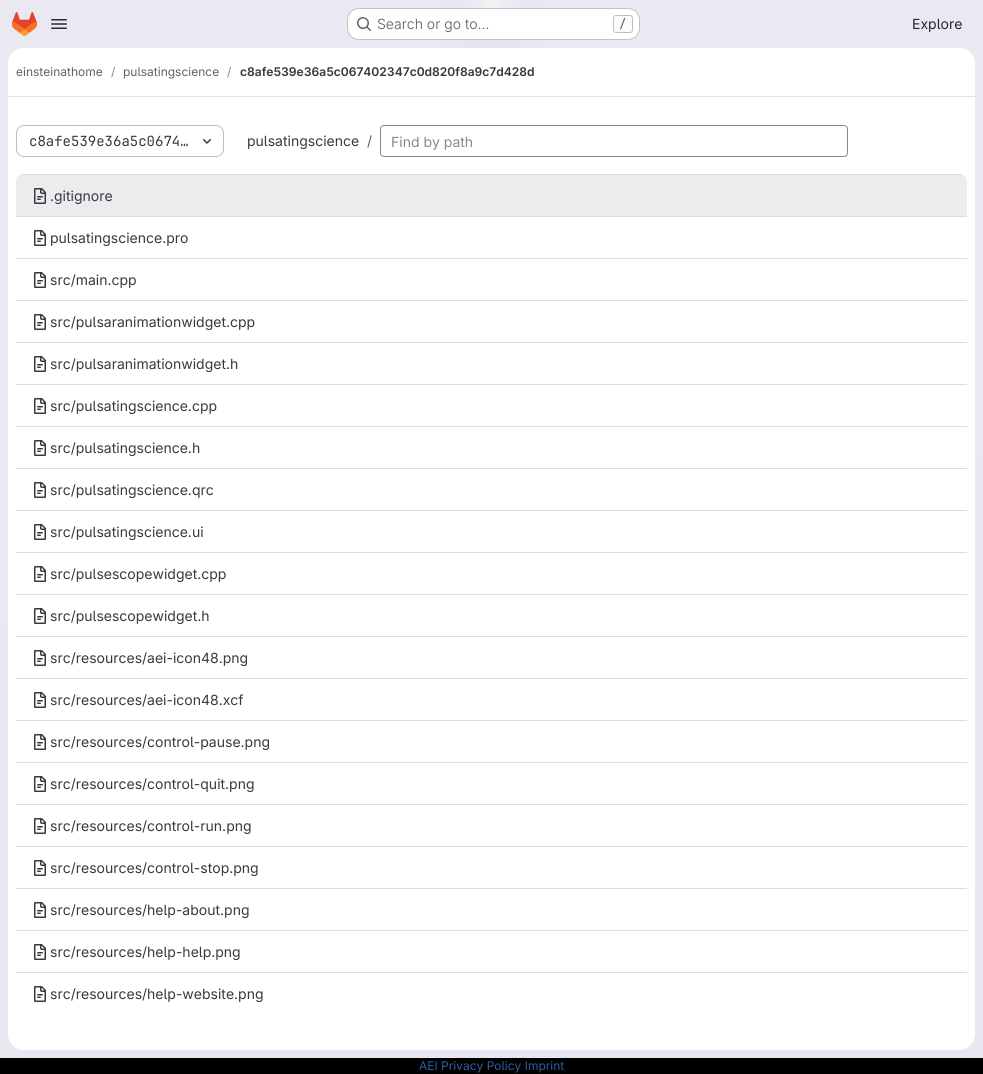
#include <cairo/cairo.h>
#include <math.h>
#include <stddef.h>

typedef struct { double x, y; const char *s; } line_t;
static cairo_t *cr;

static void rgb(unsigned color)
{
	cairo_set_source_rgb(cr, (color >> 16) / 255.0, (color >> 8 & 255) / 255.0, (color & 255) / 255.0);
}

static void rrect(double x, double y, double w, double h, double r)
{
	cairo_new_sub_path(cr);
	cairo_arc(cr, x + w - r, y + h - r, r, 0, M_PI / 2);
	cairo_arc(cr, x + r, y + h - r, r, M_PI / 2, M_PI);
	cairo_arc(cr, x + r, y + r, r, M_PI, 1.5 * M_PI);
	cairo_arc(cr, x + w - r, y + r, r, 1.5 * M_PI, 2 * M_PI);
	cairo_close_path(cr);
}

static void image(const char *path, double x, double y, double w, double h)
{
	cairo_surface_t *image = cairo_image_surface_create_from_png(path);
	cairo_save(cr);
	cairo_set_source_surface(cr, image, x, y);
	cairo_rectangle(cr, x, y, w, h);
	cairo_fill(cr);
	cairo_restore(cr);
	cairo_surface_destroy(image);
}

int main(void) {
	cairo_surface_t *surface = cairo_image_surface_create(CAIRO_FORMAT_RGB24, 983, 1074);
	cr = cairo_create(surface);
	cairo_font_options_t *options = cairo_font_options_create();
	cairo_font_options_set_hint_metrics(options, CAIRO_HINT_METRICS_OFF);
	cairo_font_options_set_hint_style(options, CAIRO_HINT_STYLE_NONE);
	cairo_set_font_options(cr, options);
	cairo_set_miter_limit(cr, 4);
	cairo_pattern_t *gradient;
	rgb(0xffffff);
	cairo_paint(cr);
	gradient = cairo_pattern_create_linear(598, 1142, 385, -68);
	cairo_pattern_add_color_stop_rgba(gradient, 0, 0.91, 0.902, 0.941, 1);
	cairo_pattern_add_color_stop_rgba(gradient, 0.7, 0.918, 0.914, 0.949, 1);
	cairo_set_source(cr, gradient);
	cairo_pattern_destroy(gradient);
	cairo_rectangle(cr, 0, 0, 983, 1058);
	cairo_fill(cr);
	gradient = cairo_pattern_create_radial(0, 0, 0, 0, 0, 1);
	cairo_pattern_set_matrix(gradient, &(cairo_matrix_t){1.0 / 492, 0, 0, 1.0 / 1074, -1.0 * 492 / 492, -1.0 * 0 / 1074});
	cairo_pattern_add_color_stop_rgba(gradient, 0, 0.894, 0.886, 0.929, 1);
	cairo_pattern_add_color_stop_rgba(gradient, 0.14, 0.894, 0.886, 0.929, 0);
	cairo_set_source(cr, gradient);
	cairo_pattern_destroy(gradient);
	cairo_rectangle(cr, 442, 0, 100, 48);
	cairo_fill(cr);
	gradient = cairo_pattern_create_radial(0, 0, 0, 0, 0, 1);
	cairo_pattern_set_matrix(gradient, &(cairo_matrix_t){1.0 / 492, 0, 0, 1.0 / 1074, -1.0 * 492 / 492, -1.0 * 0 / 1074});
	cairo_pattern_add_color_stop_rgba(gradient, 0, 0.894, 0.886, 0.925, 1);
	cairo_pattern_add_color_stop_rgba(gradient, 0.1, 0.894, 0.886, 0.925, 0);
	cairo_set_source(cr, gradient);
	cairo_pattern_destroy(gradient);
	cairo_rectangle(cr, 473, 0, 38, 35);
	cairo_fill(cr);
	gradient = cairo_pattern_create_radial(492, 0, 0, 492, 0, 1181);
	cairo_pattern_add_color_stop_rgba(gradient, 0, 1, 1, 1, 0.6);
	cairo_pattern_add_color_stop_rgba(gradient, 0.03, 1, 1, 1, 0);
	cairo_set_source(cr, gradient);
	cairo_pattern_destroy(gradient);
	cairo_rectangle(cr, 458, 0, 68, 8);
	cairo_fill(cr);
	image("img/1.png", 12, 12, 25, 24);
	image("img/2.png", 51, 19, 16, 10);
	rgb(0xffffff);
	rrect(347, 8, 293, 32, 12);
	cairo_fill(cr);
	rrect(347.5, 8.5, 292, 31, 11.5);
	cairo_set_source_rgba(cr, 0.02, 0.02, 0.024, 0.24);
	cairo_set_line_width(cr, 1);
	cairo_stroke(cr);
	image("img/3.png", 357, 17, 14, 14);
	rgb(0xfbfafd);
	rrect(613.5, 15.5, 19, 17, 2.5);
	cairo_fill_preserve(cr);
	rgb(0xbfbfc3);
	cairo_stroke(cr);
	rgb(0xffffff);
	rrect(8, 48, 967, 1002, 16);
	cairo_fill(cr);
	cairo_new_path(cr);
	cairo_move_to(cr, 24, 48);
	cairo_line_to(cr, 959, 48);
	cairo_curve_to(cr, 968, 48, 975, 55, 975, 64);
	cairo_line_to(cr, 975, 97);
	cairo_line_to(cr, 8, 97);
	cairo_line_to(cr, 8, 64);
	cairo_curve_to(cr, 8, 55, 15, 48, 24, 48);
	cairo_close_path(cr);
	cairo_fill(cr);
	rgb(0xe1dfec);
	cairo_rectangle(cr, 8, 96, 967, 1);
	cairo_fill(cr);
	rrect(16.5, 125.5, 207, 31, 7.5);
	rgb(0xbfbfc3);
	cairo_stroke(cr);
	image("img/4.png", 203, 139, 8, 5);
	rrect(380.5, 125.5, 467, 31, 3.5);
	rgb(0x89888d);
	cairo_stroke(cr);
	rgb(0xececef);
	cairo_new_path(cr);
	cairo_move_to(cr, 24, 174);
	cairo_line_to(cr, 959, 174);
	cairo_curve_to(cr, 963.5, 174, 967, 177.5, 967, 182);
	cairo_line_to(cr, 967, 216);
	cairo_line_to(cr, 16, 216);
	cairo_line_to(cr, 16, 182);
	cairo_curve_to(cr, 16, 177.5, 19.5, 174, 24, 174);
	cairo_close_path(cr);
	cairo_fill(cr);
	cairo_save(cr);
	rrect(16, 174, 951, 840, 8);
	cairo_clip(cr);
	rgb(0xdcdcde);
	cairo_rectangle(cr, 16, 174, 951, 1);
	cairo_fill(cr);
	cairo_restore(cr);
	image("img/5.png", 34, 188, 12, 16);
	rgb(0xdcdcde);
	cairo_rectangle(cr, 16, 216, 951, 1);
	cairo_fill(cr);
	image("img/6.png", 34, 230, 12, 16);
	cairo_rectangle(cr, 16, 258, 951, 1);
	cairo_fill(cr);
	image("img/7.png", 34, 272, 12, 16);
	cairo_rectangle(cr, 16, 300, 951, 1);
	cairo_fill(cr);
	image("img/7.png", 34, 314, 12, 16);
	cairo_rectangle(cr, 16, 342, 951, 1);
	cairo_fill(cr);
	image("img/7.png", 34, 356, 12, 16);
	cairo_rectangle(cr, 16, 384, 951, 1);
	cairo_fill(cr);
	image("img/7.png", 34, 398, 12, 16);
	cairo_rectangle(cr, 16, 426, 951, 1);
	cairo_fill(cr);
	image("img/7.png", 34, 440, 12, 16);
	cairo_rectangle(cr, 16, 468, 951, 1);
	cairo_fill(cr);
	image("img/7.png", 34, 482, 12, 16);
	cairo_rectangle(cr, 16, 510, 951, 1);
	cairo_fill(cr);
	image("img/7.png", 34, 524, 12, 16);
	cairo_rectangle(cr, 16, 552, 951, 1);
	cairo_fill(cr);
	image("img/7.png", 34, 566, 12, 16);
	cairo_rectangle(cr, 16, 594, 951, 1);
	cairo_fill(cr);
	image("img/7.png", 34, 608, 12, 16);
	cairo_rectangle(cr, 16, 636, 951, 1);
	cairo_fill(cr);
	image("img/7.png", 34, 650, 12, 16);
	cairo_rectangle(cr, 16, 678, 951, 1);
	cairo_fill(cr);
	image("img/7.png", 34, 692, 12, 16);
	cairo_rectangle(cr, 16, 720, 951, 1);
	cairo_fill(cr);
	image("img/7.png", 34, 734, 12, 16);
	cairo_rectangle(cr, 16, 762, 951, 1);
	cairo_fill(cr);
	image("img/6.png", 34, 776, 12, 16);
	cairo_rectangle(cr, 16, 804, 951, 1);
	cairo_fill(cr);
	image("img/6.png", 34, 818, 12, 16);
	cairo_rectangle(cr, 16, 846, 951, 1);
	cairo_fill(cr);
	image("img/6.png", 34, 860, 12, 16);
	cairo_rectangle(cr, 16, 888, 951, 1);
	cairo_fill(cr);
	image("img/6.png", 34, 902, 12, 16);
	cairo_rectangle(cr, 16, 930, 951, 1);
	cairo_fill(cr);
	image("img/6.png", 34, 944, 12, 16);
	cairo_rectangle(cr, 16, 972, 951, 1);
	cairo_fill(cr);
	image("img/6.png", 34, 986, 12, 16);
	rgb(0x000000);
	cairo_rectangle(cr, 0, 1058, 983, 16);
	cairo_fill(cr);
	cairo_select_font_face(cr, "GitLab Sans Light", CAIRO_FONT_SLANT_NORMAL, CAIRO_FONT_WEIGHT_NORMAL);
	cairo_set_font_size(cr, 14);
	rgb(0x626168);
	cairo_move_to(cr, 377, 29);
	cairo_show_text(cr, "Search or go to…");
	cairo_select_font_face(cr, "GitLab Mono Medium", CAIRO_FONT_SLANT_NORMAL, CAIRO_FONT_WEIGHT_NORMAL);
	cairo_set_font_size(cr, 12);
	cairo_move_to(cr, 619, 28);
	cairo_show_text(cr, "/");
	cairo_select_font_face(cr, "GitLab Sans", CAIRO_FONT_SLANT_NORMAL, CAIRO_FONT_WEIGHT_NORMAL);
	cairo_set_font_size(cr, 14);
	rgb(0x28272d);
	cairo_move_to(cr, 912, 29);
	cairo_show_text(cr, "Explore");
	cairo_set_font_size(cr, 12);
	rgb(0x626168);
	cairo_move_to(cr, 16, 76);
	cairo_show_text(cr, "einsteinathome");
	rgb(0x89888d);
	cairo_move_to(cr, 111, 76);
	cairo_show_text(cr, "/");
	rgb(0x626168);
	cairo_move_to(cr, 123, 76);
	cairo_show_text(cr, "pulsatingscience");
	rgb(0x89888d);
	cairo_move_to(cr, 227, 76);
	cairo_show_text(cr, "/");
	cairo_select_font_face(cr, "GitLab Sans SemiBold", CAIRO_FONT_SLANT_NORMAL, CAIRO_FONT_WEIGHT_NORMAL);
	rgb(0x3a383f);
	cairo_move_to(cr, 240, 76);
	cairo_show_text(cr, "c8afe539e36a5c067402347c0d820f8a9c7d428d");
	cairo_select_font_face(cr, "GitLab Mono", CAIRO_FONT_SLANT_NORMAL, CAIRO_FONT_WEIGHT_NORMAL);
	cairo_set_font_size(cr, 14);
	cairo_move_to(cr, 29, 146);
	cairo_show_text(cr, "c8afe539e36a5c0674…");
	cairo_select_font_face(cr, "GitLab Sans", CAIRO_FONT_SLANT_NORMAL, CAIRO_FONT_WEIGHT_NORMAL);
	cairo_move_to(cr, 247, 146);
	cairo_show_text(cr, "pulsatingscience");
	rgb(0x626168);
	cairo_move_to(cr, 367, 146);
	cairo_show_text(cr, "/");
	rgb(0x89888d);
	cairo_move_to(cr, 391, 147);
	cairo_show_text(cr, "Find by path");
	rgb(0x3a383f);
	{
		static const line_t items[] = {
			{50, 201, ".gitignore"},
			{50, 243, "pulsatingscience.pro"},
			{50, 285, "src/main.cpp"},
			{50, 327, "src/pulsaranimationwidget.cpp"},
			{50, 369, "src/pulsaranimationwidget.h"},
			{50, 411, "src/pulsatingscience.cpp"},
			{50, 453, "src/pulsatingscience.h"},
			{50, 495, "src/pulsatingscience.qrc"},
			{50, 537, "src/pulsatingscience.ui"},
			{50, 579, "src/pulsescopewidget.cpp"},
			{50, 621, "src/pulsescopewidget.h"},
			{50, 663, "src/resources/aei-icon48.png"},
			{50, 705, "src/resources/aei-icon48.xcf"},
			{50, 747, "src/resources/control-pause.png"},
			{50, 789, "src/resources/control-quit.png"},
			{50, 831, "src/resources/control-run.png"},
			{50, 873, "src/resources/control-stop.png"},
			{50, 915, "src/resources/help-about.png"},
			{50, 957, "src/resources/help-help.png"},
			{50, 999, "src/resources/help-website.png"},
		};
		for (size_t i = 0; i < sizeof items / sizeof *items; i++) {
			cairo_move_to(cr, items[i].x, items[i].y);
			cairo_show_text(cr, items[i].s);
		}
	}
	cairo_set_font_size(cr, 12);
	rgb(0x2f5ca0);
	cairo_move_to(cr, 419, 1070);
	cairo_show_text(cr, "AEI Privacy Policy Imprint");
	cairo_surface_write_to_png(surface, "page.png");
	cairo_font_options_destroy(options);
	cairo_destroy(cr);
	cairo_surface_destroy(surface);
	return 0;
}
